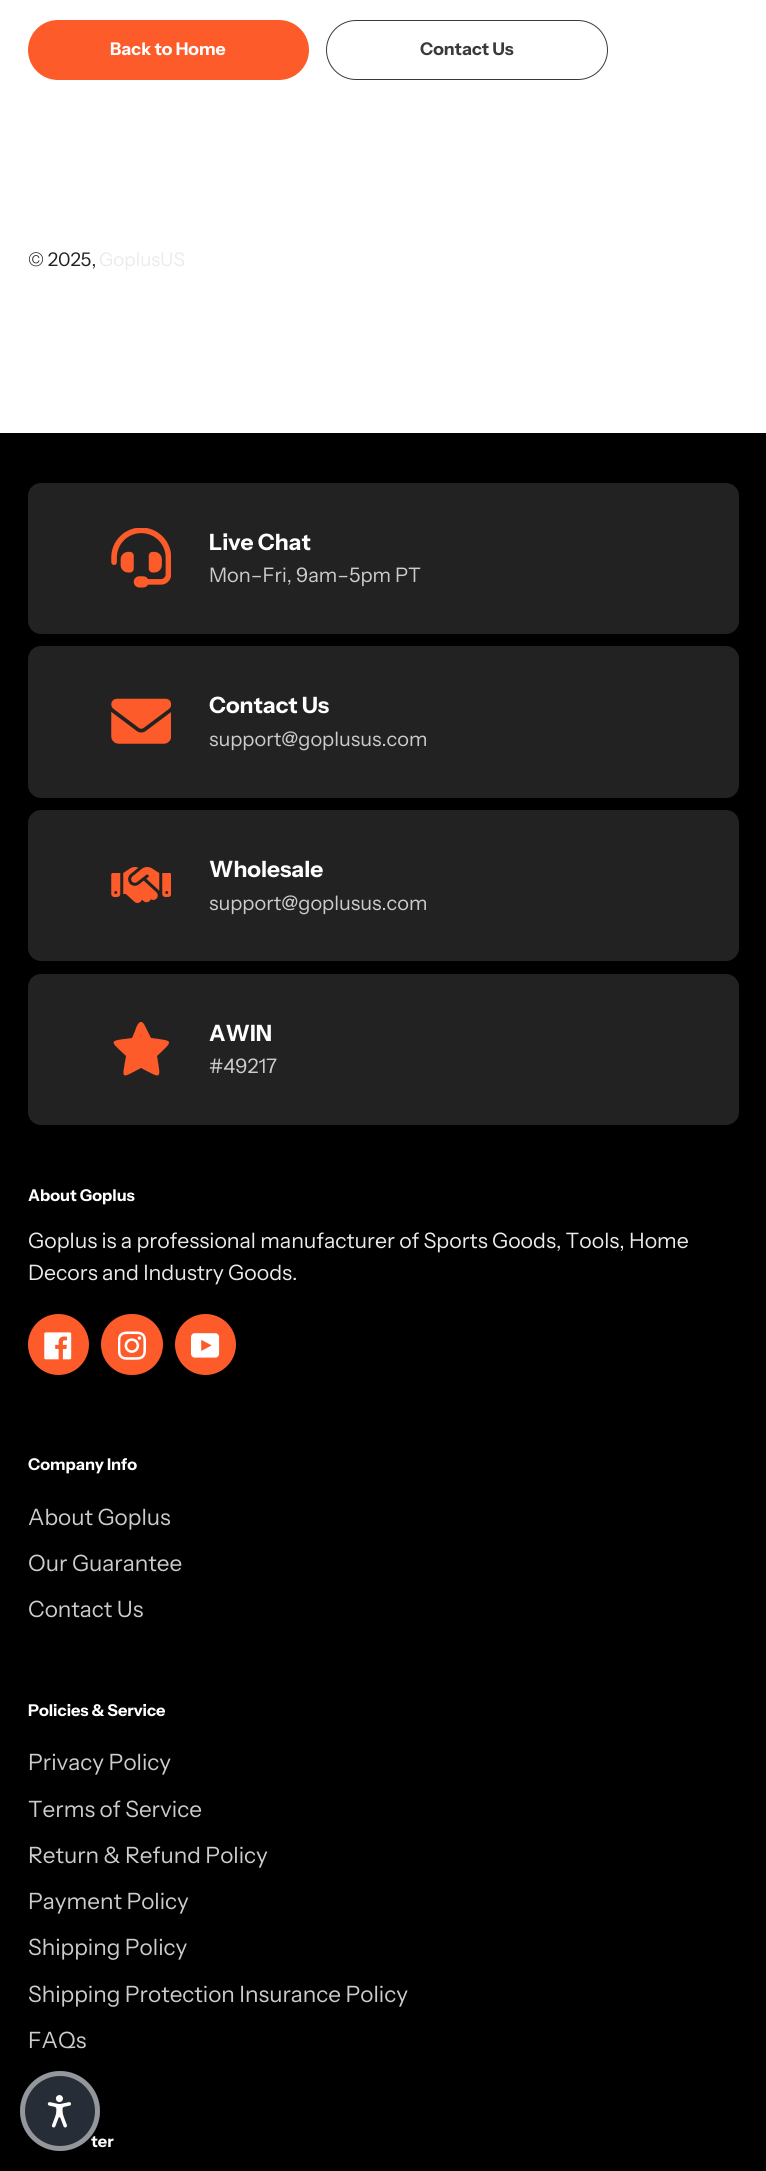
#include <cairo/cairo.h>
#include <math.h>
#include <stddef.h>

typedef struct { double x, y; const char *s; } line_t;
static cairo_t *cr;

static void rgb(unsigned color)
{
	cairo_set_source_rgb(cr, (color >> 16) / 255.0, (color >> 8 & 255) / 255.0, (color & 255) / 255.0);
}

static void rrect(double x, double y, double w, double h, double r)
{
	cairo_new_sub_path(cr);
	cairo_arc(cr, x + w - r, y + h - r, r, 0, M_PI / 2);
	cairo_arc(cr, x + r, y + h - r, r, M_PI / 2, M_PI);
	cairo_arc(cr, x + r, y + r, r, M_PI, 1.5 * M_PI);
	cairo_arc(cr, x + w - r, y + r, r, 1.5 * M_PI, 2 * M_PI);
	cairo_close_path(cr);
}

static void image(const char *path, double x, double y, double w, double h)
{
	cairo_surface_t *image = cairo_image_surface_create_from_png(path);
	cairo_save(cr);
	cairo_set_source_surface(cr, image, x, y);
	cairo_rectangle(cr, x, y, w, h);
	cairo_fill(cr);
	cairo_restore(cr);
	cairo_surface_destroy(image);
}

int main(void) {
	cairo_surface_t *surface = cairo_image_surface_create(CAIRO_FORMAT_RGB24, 766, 2171);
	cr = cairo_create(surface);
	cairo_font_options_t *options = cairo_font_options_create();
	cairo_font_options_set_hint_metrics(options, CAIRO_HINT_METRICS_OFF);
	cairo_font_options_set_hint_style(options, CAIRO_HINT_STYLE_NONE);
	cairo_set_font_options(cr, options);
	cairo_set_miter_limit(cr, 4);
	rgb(0xffffff);
	cairo_paint(cr);
	rgb(0xfd5b2a);
	rrect(28, 20, 281, 60, 30);
	cairo_fill(cr);
	rrect(326.5, 20.5, 281, 59, 29.5);
	rgb(0x3a3a3a);
	cairo_set_line_width(cr, 1);
	cairo_stroke(cr);
	rgb(0x000000);
	cairo_rectangle(cr, 0, 433, 766, 1738);
	cairo_fill(cr);
	rgb(0x222222);
	rrect(28, 483, 711, 151, 13);
	cairo_fill(cr);
	image("img/1.png", 111, 528, 60, 60);
	rrect(28, 646, 711, 152, 13);
	cairo_fill(cr);
	image("img/2.png", 111, 698, 60, 46);
	rrect(28, 810, 711, 151, 13);
	cairo_fill(cr);
	image("img/3.png", 111, 867, 60, 36);
	rrect(28, 974, 711, 151, 13);
	cairo_fill(cr);
	rgb(0xfd5b2a);
	cairo_new_path(cr);
	cairo_move_to(cr, 144, 1024);
	cairo_line_to(cr, 142, 1022);
	cairo_curve_to(cr, 138, 1021, 136, 1028, 135, 1031);
	cairo_line_to(cr, 132, 1038);
	cairo_curve_to(cr, 108, 1041, 109, 1040, 126, 1056);
	cairo_curve_to(cr, 122, 1080, 120, 1079, 141, 1068);
	cairo_curve_to(cr, 162, 1079, 161, 1080, 157, 1056);
	cairo_curve_to(cr, 174, 1040, 174, 1041, 151, 1038);
	cairo_close_path(cr);
	cairo_fill(cr);
	cairo_arc(cr, 58.5, 1344.5, 30.5, 0, 2 * M_PI);
	cairo_fill(cr);
	image("img/4.png", 44, 1332, 28, 28);
	rrect(101, 1314, 62, 61, 30.5);
	cairo_fill(cr);
	image("img/5.png", 118, 1331, 28, 29);
	cairo_arc(cr, 205.5, 1344.5, 30.5, 0, 2 * M_PI);
	cairo_fill(cr);
	image("img/6.png", 191, 1333, 29, 25);
	cairo_select_font_face(cr, "Instrument Sans", CAIRO_FONT_SLANT_NORMAL, CAIRO_FONT_WEIGHT_BOLD);
	cairo_set_font_size(cr, 17.5);
	rgb(0xffffff);
	cairo_move_to(cr, 110, 55);
	cairo_show_text(cr, "Back to Home");
	rgb(0x3a3a3a);
	cairo_move_to(cr, 420, 55);
	cairo_show_text(cr, "Contact Us");
	cairo_select_font_face(cr, "Instrument Sans", CAIRO_FONT_SLANT_NORMAL, CAIRO_FONT_WEIGHT_NORMAL);
	cairo_set_font_size(cr, 18.75);
	rgb(0x232323);
	cairo_move_to(cr, 28, 266);
	cairo_show_text(cr, "© 2025,");
	rgb(0xebebeb);
	cairo_move_to(cr, 99, 266);
	cairo_show_text(cr, "GoplusUS");
	cairo_select_font_face(cr, "Instrument Sans", CAIRO_FONT_SLANT_NORMAL, CAIRO_FONT_WEIGHT_BOLD);
	cairo_set_font_size(cr, 22.5);
	rgb(0xffffff);
	cairo_move_to(cr, 209, 550);
	cairo_show_text(cr, "Live Chat");
	cairo_select_font_face(cr, "Instrument Sans", CAIRO_FONT_SLANT_NORMAL, CAIRO_FONT_WEIGHT_NORMAL);
	cairo_set_font_size(cr, 20);
	rgb(0xcccccc);
	cairo_move_to(cr, 209, 582);
	cairo_show_text(cr, "Mon–Fri, 9am–5pm PT");
	cairo_select_font_face(cr, "Instrument Sans", CAIRO_FONT_SLANT_NORMAL, CAIRO_FONT_WEIGHT_BOLD);
	cairo_set_font_size(cr, 22.5);
	rgb(0xffffff);
	cairo_move_to(cr, 209, 713);
	cairo_show_text(cr, "Contact Us");
	cairo_select_font_face(cr, "Instrument Sans", CAIRO_FONT_SLANT_NORMAL, CAIRO_FONT_WEIGHT_NORMAL);
	cairo_set_font_size(cr, 20);
	rgb(0xcccccc);
	cairo_move_to(cr, 209, 746);
	cairo_show_text(cr, "support@goplusus.com");
	cairo_select_font_face(cr, "Instrument Sans", CAIRO_FONT_SLANT_NORMAL, CAIRO_FONT_WEIGHT_BOLD);
	cairo_set_font_size(cr, 22.5);
	rgb(0xffffff);
	cairo_move_to(cr, 209, 877);
	cairo_show_text(cr, "Wholesale");
	cairo_select_font_face(cr, "Instrument Sans", CAIRO_FONT_SLANT_NORMAL, CAIRO_FONT_WEIGHT_NORMAL);
	cairo_set_font_size(cr, 20);
	rgb(0xcccccc);
	cairo_move_to(cr, 209, 910);
	cairo_show_text(cr, "support@goplusus.com");
	cairo_select_font_face(cr, "Instrument Sans", CAIRO_FONT_SLANT_NORMAL, CAIRO_FONT_WEIGHT_BOLD);
	cairo_set_font_size(cr, 22.5);
	rgb(0xffffff);
	cairo_move_to(cr, 209, 1041);
	cairo_show_text(cr, "AWIN");
	cairo_select_font_face(cr, "Instrument Sans", CAIRO_FONT_SLANT_NORMAL, CAIRO_FONT_WEIGHT_NORMAL);
	cairo_set_font_size(cr, 20);
	rgb(0xcccccc);
	cairo_move_to(cr, 209, 1073);
	cairo_show_text(cr, "#49217");
	cairo_select_font_face(cr, "Instrument Sans", CAIRO_FONT_SLANT_NORMAL, CAIRO_FONT_WEIGHT_BOLD);
	cairo_set_font_size(cr, 16.25);
	rgb(0xffffff);
	cairo_move_to(cr, 28, 1201);
	cairo_show_text(cr, "About Goplus");
	cairo_select_font_face(cr, "Instrument Sans", CAIRO_FONT_SLANT_NORMAL, CAIRO_FONT_WEIGHT_NORMAL);
	cairo_set_font_size(cr, 21.25);
	rgb(0xebebeb);
	cairo_move_to(cr, 28, 1248);
	cairo_show_text(cr, "Goplus is a professional manufacturer of Sports Goods, Tools, Home");
	cairo_move_to(cr, 28, 1280);
	cairo_show_text(cr, "Decors and Industry Goods.");
	cairo_select_font_face(cr, "Instrument Sans", CAIRO_FONT_SLANT_NORMAL, CAIRO_FONT_WEIGHT_BOLD);
	cairo_set_font_size(cr, 16.25);
	rgb(0xffffff);
	cairo_move_to(cr, 28, 1470);
	cairo_show_text(cr, "Company Info");
	cairo_select_font_face(cr, "Instrument Sans", CAIRO_FONT_SLANT_NORMAL, CAIRO_FONT_WEIGHT_NORMAL);
	cairo_set_font_size(cr, 22.5);
	rgb(0xcccccc);
	{
		static const line_t items[] = {
			{28, 1525, "About Goplus"},
			{28, 1571, "Our Guarantee"},
			{28, 1617, "Contact Us"},
		};
		for (size_t i = 0; i < sizeof items / sizeof *items; i++) {
			cairo_move_to(cr, items[i].x, items[i].y);
			cairo_show_text(cr, items[i].s);
		}
	}
	cairo_select_font_face(cr, "Instrument Sans", CAIRO_FONT_SLANT_NORMAL, CAIRO_FONT_WEIGHT_BOLD);
	cairo_set_font_size(cr, 16.25);
	rgb(0xffffff);
	cairo_move_to(cr, 28, 1716);
	cairo_show_text(cr, "Policies & Service");
	cairo_select_font_face(cr, "Instrument Sans", CAIRO_FONT_SLANT_NORMAL, CAIRO_FONT_WEIGHT_NORMAL);
	cairo_set_font_size(cr, 22.5);
	rgb(0xcccccc);
	{
		static const line_t items[] = {
			{28, 1770, "Privacy Policy"},
			{28, 1817, "Terms of Service"},
			{28, 1863, "Return & Refund Policy"},
			{28, 1909, "Payment Policy"},
			{28, 1955, "Shipping Policy"},
			{28, 2002, "Shipping Protection Insurance Policy"},
			{28, 2048, "FAQs"},
		};
		for (size_t i = 0; i < sizeof items / sizeof *items; i++) {
			cairo_move_to(cr, items[i].x, items[i].y);
			cairo_show_text(cr, items[i].s);
		}
	}
	cairo_select_font_face(cr, "Instrument Sans", CAIRO_FONT_SLANT_NORMAL, CAIRO_FONT_WEIGHT_BOLD);
	cairo_set_font_size(cr, 16.25);
	rgb(0xffffff);
	cairo_move_to(cr, 91, 2147);
	cairo_show_text(cr, "ter");
	rgb(0x272d36);
	cairo_new_path(cr);
	cairo_arc(cr, 60, 2111, 40, 0, 2 * M_PI);
	cairo_fill(cr);
	cairo_arc(cr, 60, 2111, 37.5, 0, 2 * M_PI);
	cairo_set_source_rgba(cr, 1, 1, 1, 0.5);
	cairo_set_line_width(cr, 5);
	cairo_stroke(cr);
	image("img/7.png", 47, 2095, 24, 33);
	cairo_surface_write_to_png(surface, "page.png");
	cairo_font_options_destroy(options);
	cairo_destroy(cr);
	cairo_surface_destroy(surface);
	return 0;
}
